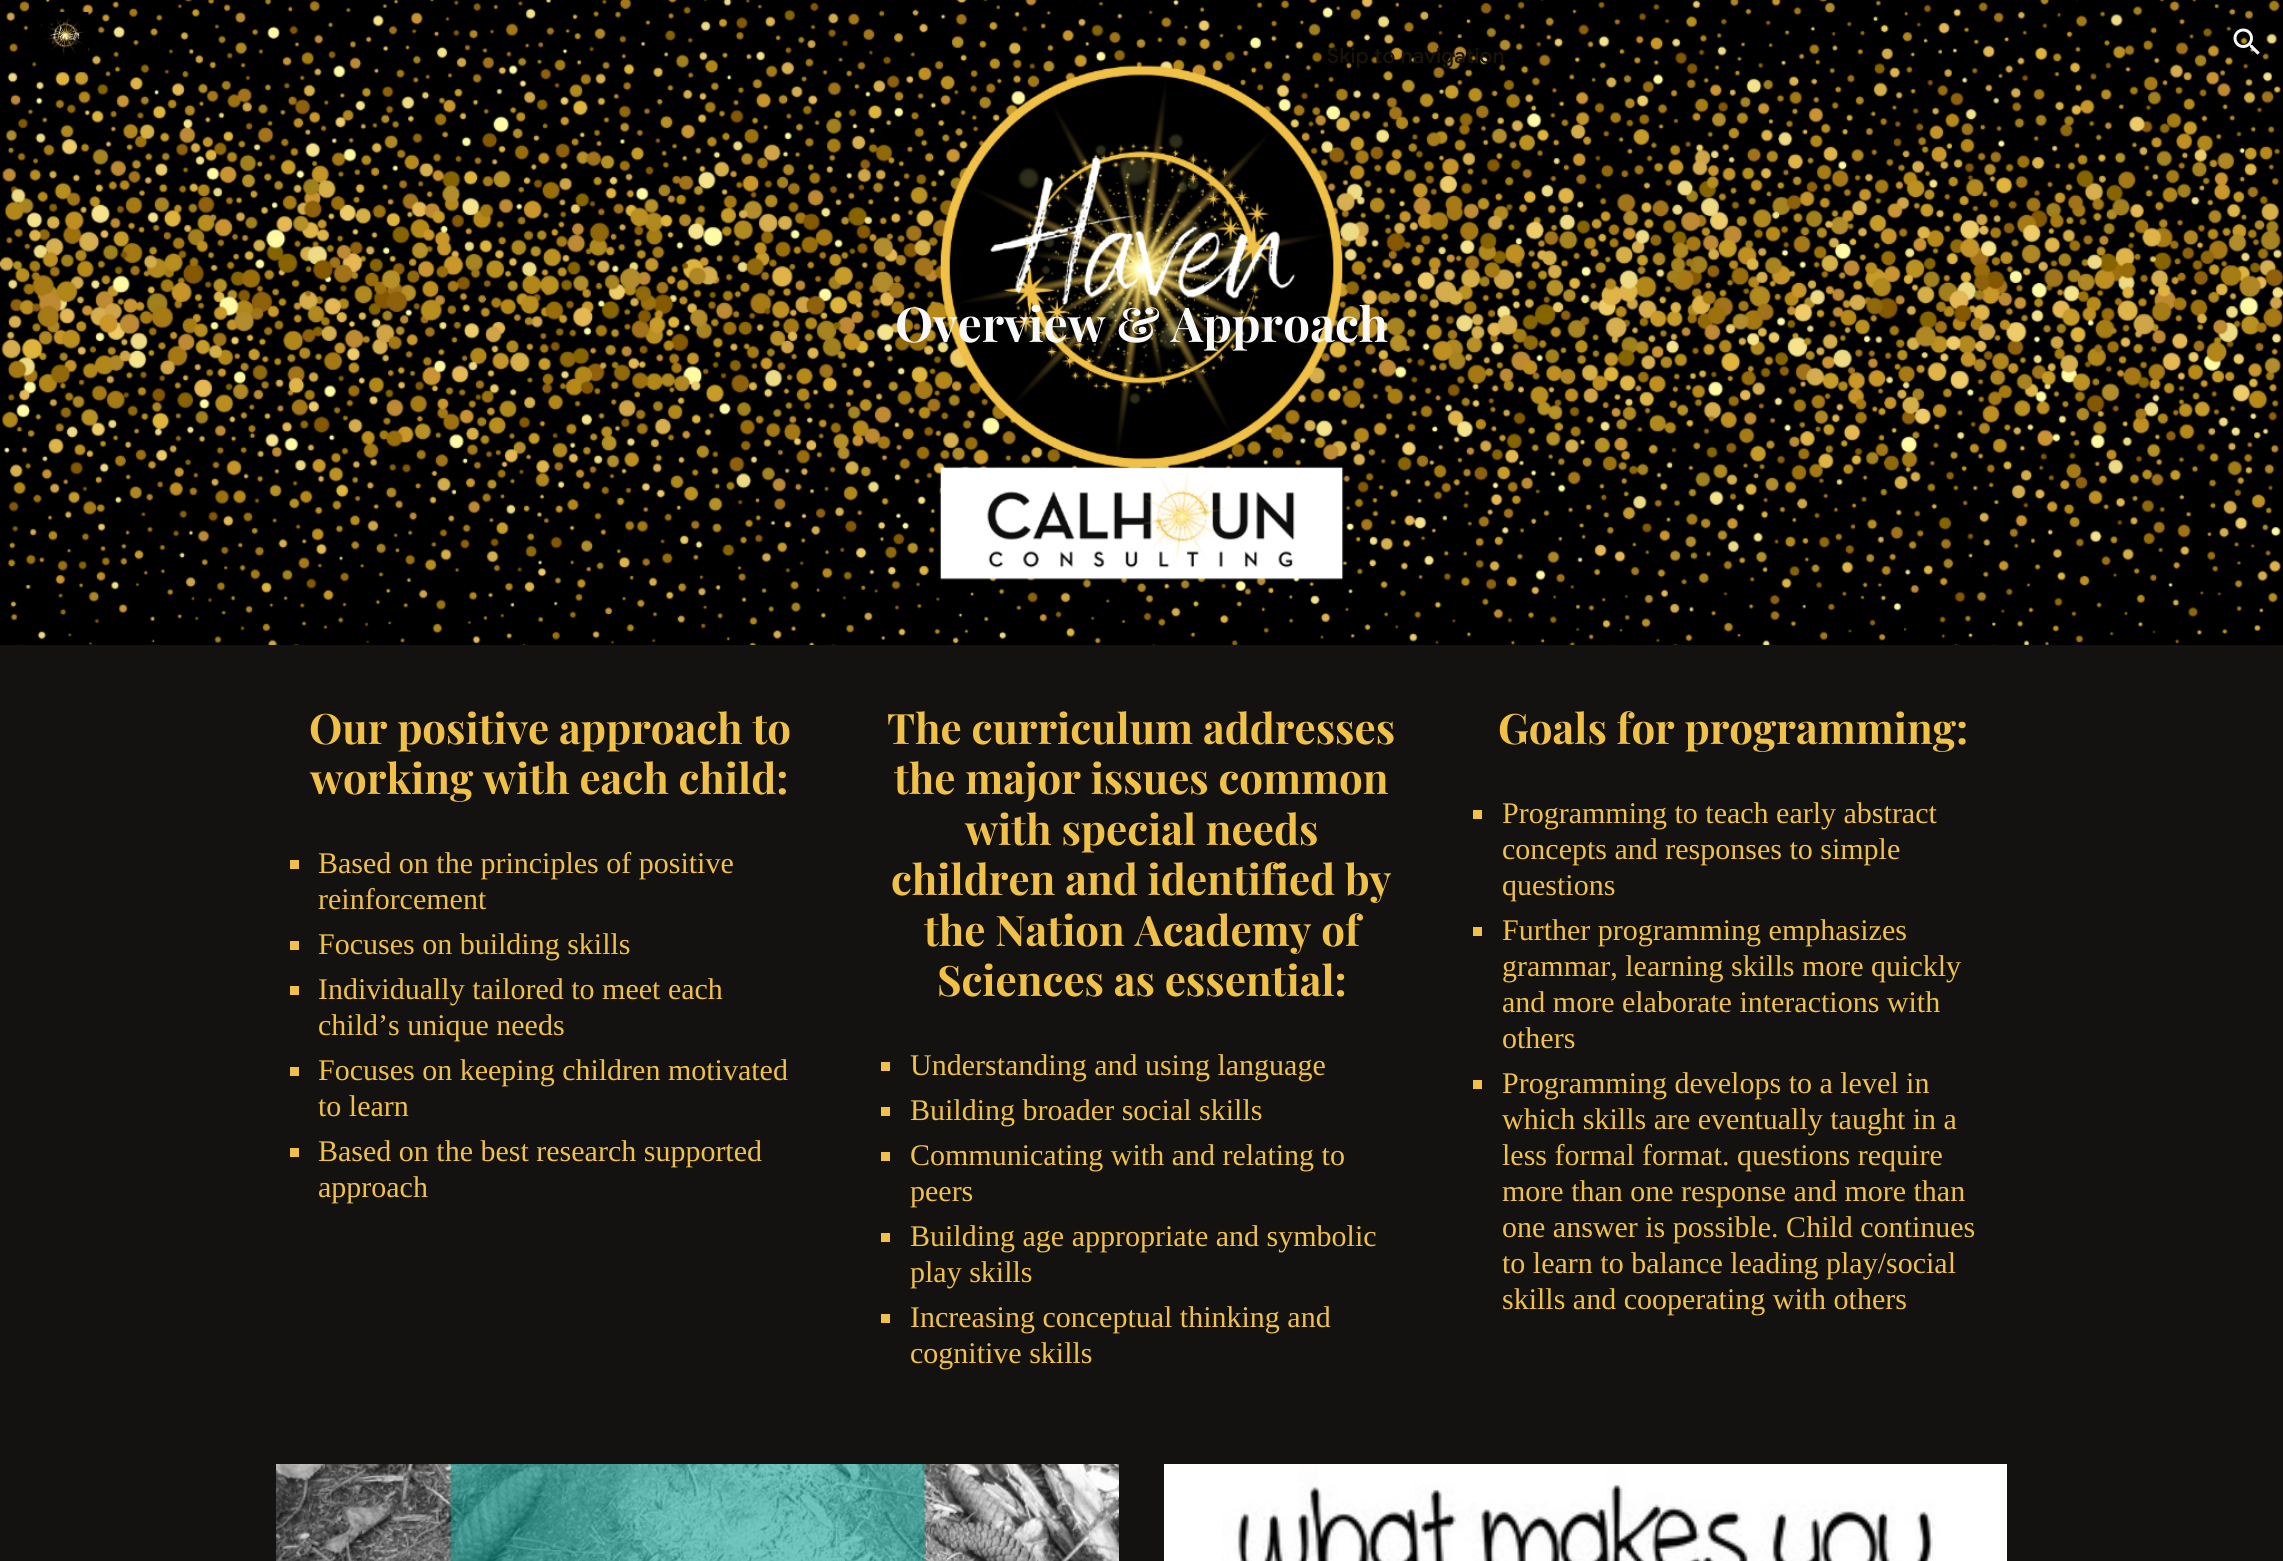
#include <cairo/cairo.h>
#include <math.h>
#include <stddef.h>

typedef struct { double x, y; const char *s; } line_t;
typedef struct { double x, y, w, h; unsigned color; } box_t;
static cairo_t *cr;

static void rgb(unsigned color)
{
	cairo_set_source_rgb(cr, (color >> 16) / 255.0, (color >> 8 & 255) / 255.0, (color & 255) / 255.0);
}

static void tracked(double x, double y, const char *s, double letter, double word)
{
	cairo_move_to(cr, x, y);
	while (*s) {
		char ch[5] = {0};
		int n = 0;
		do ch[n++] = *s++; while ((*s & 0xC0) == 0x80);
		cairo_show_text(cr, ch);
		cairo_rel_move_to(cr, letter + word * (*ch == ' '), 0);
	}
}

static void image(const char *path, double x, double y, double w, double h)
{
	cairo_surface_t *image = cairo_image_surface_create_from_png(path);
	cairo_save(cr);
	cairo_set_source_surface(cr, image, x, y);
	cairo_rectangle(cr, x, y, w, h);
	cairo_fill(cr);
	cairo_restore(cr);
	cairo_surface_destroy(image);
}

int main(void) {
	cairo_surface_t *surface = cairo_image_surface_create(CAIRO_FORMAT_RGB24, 2283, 1561);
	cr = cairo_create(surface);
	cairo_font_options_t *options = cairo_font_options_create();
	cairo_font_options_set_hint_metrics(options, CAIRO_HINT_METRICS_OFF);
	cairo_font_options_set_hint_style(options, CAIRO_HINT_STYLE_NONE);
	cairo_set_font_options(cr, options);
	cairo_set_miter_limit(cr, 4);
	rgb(0x131211);
	cairo_paint(cr);
	image("img/3.png", 0, 0, 2283, 645);
	image("img/1.png", 42, 12, 47, 60);
	image("img/2.png", 2233, 28, 27, 27);
	{
		static const box_t items[] = {
			{290, 860, 9, 9, 0xf0c146},
			{290, 941, 9, 9, 0xf0c146},
			{290, 986, 9, 9, 0xf0c146},
			{290, 1067, 9, 9, 0xf0c146},
			{290, 1148, 9, 9, 0xf0c146},
			{881, 1062, 9, 9, 0xf0c146},
			{881, 1107, 9, 9, 0xf0c146},
			{881, 1152, 9, 9, 0xf0c146},
			{881, 1233, 9, 9, 0xf0c146},
			{881, 1314, 9, 9, 0xf0c146},
			{1473, 810, 9, 9, 0xf0c146},
			{1473, 927, 9, 9, 0xf0c146},
			{1473, 1080, 9, 9, 0xf0c146},
		};
		for (size_t i = 0; i < sizeof items / sizeof *items; i++) {
			rgb(items[i].color);
			cairo_rectangle(cr, items[i].x, items[i].y, items[i].w, items[i].h);
			cairo_fill(cr);
		}
	}
	image("img/4.png", 276, 1464, 843, 97);
	image("img/5.png", 1164, 1464, 843, 97);
	cairo_select_font_face(cr, "Google Sans Medium", CAIRO_FONT_SLANT_NORMAL, CAIRO_FONT_WEIGHT_NORMAL);
	cairo_set_font_size(cr, 21);
	rgb(0x1a1407);
	tracked(1327, 63, "Skip to navigation", 0.25, 0);
	cairo_select_font_face(cr, "Playfair Display", CAIRO_FONT_SLANT_NORMAL, CAIRO_FONT_WEIGHT_BOLD);
	cairo_set_font_size(cr, 48);
	rgb(0xf9f9f9);
	cairo_move_to(cr, 895, 342);
	cairo_show_text(cr, "Overview & Approach");
	cairo_set_font_size(cr, 42);
	rgb(0xf0c146);
	cairo_move_to(cr, 309, 744);
	cairo_show_text(cr, "Our positive approach to");
	cairo_move_to(cr, 310, 794);
	cairo_show_text(cr, "working with each child:");
	cairo_select_font_face(cr, "Liberation Serif", CAIRO_FONT_SLANT_NORMAL, CAIRO_FONT_WEIGHT_NORMAL);
	cairo_set_font_size(cr, 30);
	{
		static const line_t items[] = {
			{318, 873, "Based on the principles of positive"},
			{318, 909, "reinforcement"},
			{318, 954, "Focuses on building skills"},
			{318, 999, "Individually tailored to meet each"},
			{318, 1035, "child’s unique needs"},
			{318, 1080, "Focuses on keeping children motivated"},
			{318, 1116, "to learn"},
			{318, 1161, "Based on the best research supported"},
			{318, 1197, "approach"},
		};
		for (size_t i = 0; i < sizeof items / sizeof *items; i++) {
			cairo_move_to(cr, items[i].x, items[i].y);
			cairo_show_text(cr, items[i].s);
		}
	}
	cairo_select_font_face(cr, "Playfair Display", CAIRO_FONT_SLANT_NORMAL, CAIRO_FONT_WEIGHT_BOLD);
	cairo_set_font_size(cr, 42);
	{
		static const line_t items[] = {
			{887, 744, "The curriculum addresses"},
			{894, 794, "the major issues common"},
			{965, 845, "with special needs"},
			{891, 895, "children and identified by"},
			{924, 946, "the Nation Academy of"},
			{937, 996, "Sciences as essential:"},
		};
		for (size_t i = 0; i < sizeof items / sizeof *items; i++) {
			cairo_move_to(cr, items[i].x, items[i].y);
			cairo_show_text(cr, items[i].s);
		}
	}
	cairo_select_font_face(cr, "Liberation Serif", CAIRO_FONT_SLANT_NORMAL, CAIRO_FONT_WEIGHT_NORMAL);
	cairo_set_font_size(cr, 30);
	{
		static const line_t items[] = {
			{910, 1075, "Understanding and using language"},
			{910, 1120, "Building broader social skills"},
			{910, 1165, "Communicating with and relating to"},
			{910, 1201, "peers"},
			{910, 1246, "Building age appropriate and symbolic"},
			{910, 1282, "play skills"},
			{910, 1327, "Increasing conceptual thinking and"},
			{910, 1363, "cognitive skills"},
		};
		for (size_t i = 0; i < sizeof items / sizeof *items; i++) {
			cairo_move_to(cr, items[i].x, items[i].y);
			cairo_show_text(cr, items[i].s);
		}
	}
	cairo_select_font_face(cr, "Playfair Display", CAIRO_FONT_SLANT_NORMAL, CAIRO_FONT_WEIGHT_BOLD);
	cairo_set_font_size(cr, 42);
	cairo_move_to(cr, 1498, 744);
	cairo_show_text(cr, "Goals for programming:");
	cairo_select_font_face(cr, "Liberation Serif", CAIRO_FONT_SLANT_NORMAL, CAIRO_FONT_WEIGHT_NORMAL);
	cairo_set_font_size(cr, 30);
	{
		static const line_t items[] = {
			{1502, 823, "Programming to teach early abstract"},
			{1502, 859, "concepts and responses to simple"},
			{1502, 895, "questions"},
			{1502, 940, "Further programming emphasizes"},
			{1502, 976, "grammar, learning skills more quickly"},
			{1502, 1012, "and more elaborate interactions with"},
			{1502, 1048, "others"},
			{1502, 1093, "Programming develops to a level in"},
			{1502, 1129, "which skills are eventually taught in a"},
			{1502, 1165, "less formal format. questions require"},
			{1502, 1201, "more than one response and more than"},
			{1502, 1237, "one answer is possible. Child continues"},
			{1502, 1273, "to learn to balance leading play/social"},
			{1502, 1309, "skills and cooperating with others"},
		};
		for (size_t i = 0; i < sizeof items / sizeof *items; i++) {
			cairo_move_to(cr, items[i].x, items[i].y);
			cairo_show_text(cr, items[i].s);
		}
	}
	cairo_surface_write_to_png(surface, "page.png");
	cairo_font_options_destroy(options);
	cairo_destroy(cr);
	cairo_surface_destroy(surface);
	return 0;
}
